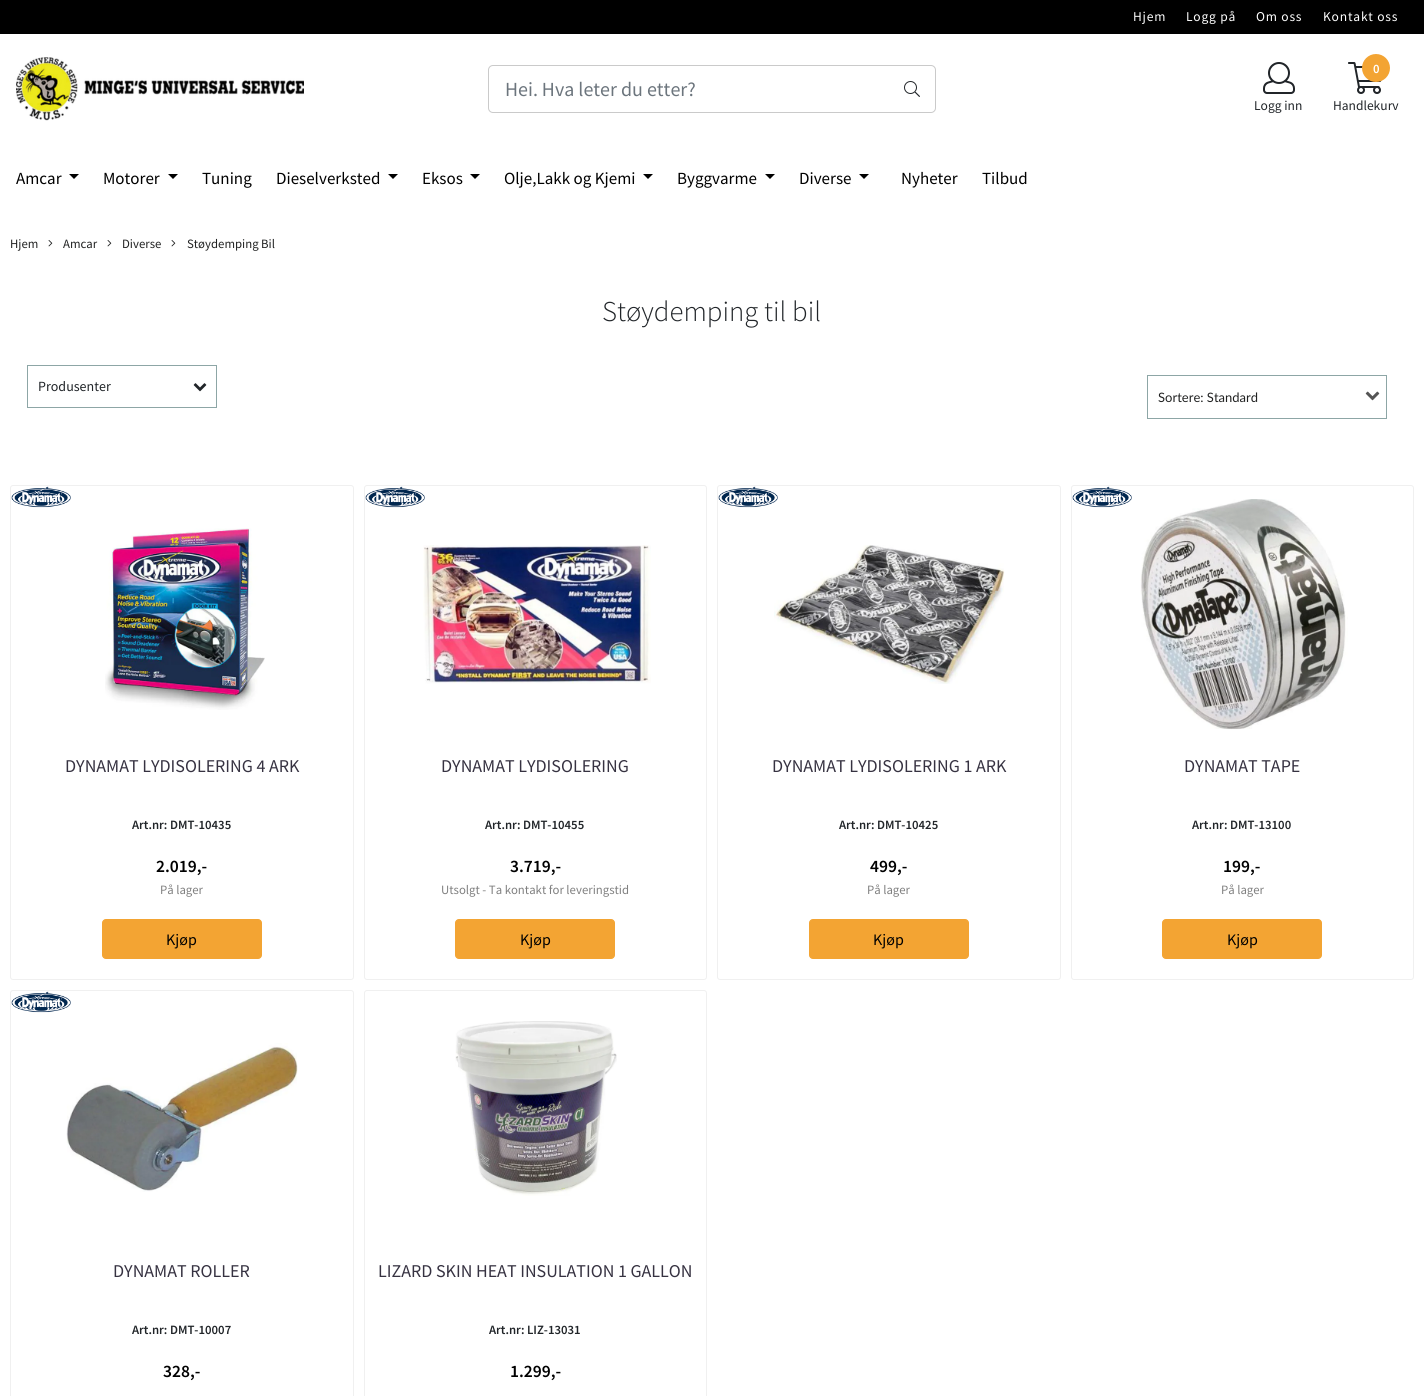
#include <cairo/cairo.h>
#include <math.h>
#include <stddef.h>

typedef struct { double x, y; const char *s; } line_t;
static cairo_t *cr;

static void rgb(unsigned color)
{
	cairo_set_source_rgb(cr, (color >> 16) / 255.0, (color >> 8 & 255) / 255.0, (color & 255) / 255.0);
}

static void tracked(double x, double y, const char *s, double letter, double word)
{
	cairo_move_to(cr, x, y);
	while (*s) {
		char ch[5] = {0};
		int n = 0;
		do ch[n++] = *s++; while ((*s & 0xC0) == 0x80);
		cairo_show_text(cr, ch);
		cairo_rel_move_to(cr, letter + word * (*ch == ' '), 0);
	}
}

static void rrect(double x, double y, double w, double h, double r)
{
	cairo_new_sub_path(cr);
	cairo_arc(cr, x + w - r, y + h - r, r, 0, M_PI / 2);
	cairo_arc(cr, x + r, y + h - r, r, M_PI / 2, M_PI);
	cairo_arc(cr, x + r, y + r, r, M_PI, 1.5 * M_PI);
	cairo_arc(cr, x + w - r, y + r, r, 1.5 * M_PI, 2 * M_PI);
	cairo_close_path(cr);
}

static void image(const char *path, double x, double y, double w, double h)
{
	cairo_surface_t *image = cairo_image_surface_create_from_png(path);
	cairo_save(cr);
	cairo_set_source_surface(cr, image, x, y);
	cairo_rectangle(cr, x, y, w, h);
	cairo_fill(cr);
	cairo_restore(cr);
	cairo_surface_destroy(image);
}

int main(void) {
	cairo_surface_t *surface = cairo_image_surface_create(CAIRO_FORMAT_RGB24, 1424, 1396);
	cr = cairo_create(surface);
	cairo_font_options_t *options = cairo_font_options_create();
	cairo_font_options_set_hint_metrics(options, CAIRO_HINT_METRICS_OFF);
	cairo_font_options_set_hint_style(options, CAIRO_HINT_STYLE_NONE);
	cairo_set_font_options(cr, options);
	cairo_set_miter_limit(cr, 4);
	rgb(0xffffff);
	cairo_paint(cr);
	rgb(0x000000);
	cairo_rectangle(cr, 0, 0, 1424, 34);
	cairo_fill(cr);
	image("img/1.png", 16, 57, 288, 64);
	rrect(488.5, 65.5, 447, 47, 4.5);
	rgb(0xcacaca);
	cairo_set_line_width(cr, 1);
	cairo_stroke(cr);
	image("img/2.png", 904, 81, 16, 16);
	image("img/3.png", 1263, 62, 32, 32);
	image("img/4.png", 1348, 62, 34, 32);
	rgb(0xf3a433);
	cairo_arc(cr, 1376, 68, 13, 0, 2 * M_PI);
	cairo_fill_preserve(cr);
	cairo_set_line_width(cr, 2);
	cairo_stroke(cr);
	rgb(0x000000);
	cairo_new_path(cr);
	cairo_move_to(cr, 69, 174);
	cairo_line_to(cr, 79, 174);
	cairo_line_to(cr, 74, 179);
	cairo_close_path(cr);
	cairo_fill(cr);
	cairo_new_path(cr);
	cairo_move_to(cr, 168, 174);
	cairo_line_to(cr, 178, 174);
	cairo_line_to(cr, 173, 179);
	cairo_close_path(cr);
	cairo_fill(cr);
	cairo_new_path(cr);
	cairo_move_to(cr, 388, 174);
	cairo_line_to(cr, 398, 174);
	cairo_line_to(cr, 393, 179);
	cairo_close_path(cr);
	cairo_fill(cr);
	cairo_new_path(cr);
	cairo_move_to(cr, 470, 174);
	cairo_line_to(cr, 480, 174);
	cairo_line_to(cr, 475, 179);
	cairo_close_path(cr);
	cairo_fill(cr);
	cairo_new_path(cr);
	cairo_move_to(cr, 643, 174);
	cairo_line_to(cr, 653, 174);
	cairo_line_to(cr, 648, 179);
	cairo_close_path(cr);
	cairo_fill(cr);
	cairo_new_path(cr);
	cairo_move_to(cr, 765, 174);
	cairo_line_to(cr, 775, 174);
	cairo_line_to(cr, 770, 179);
	cairo_close_path(cr);
	cairo_fill(cr);
	cairo_new_path(cr);
	cairo_move_to(cr, 859, 174);
	cairo_line_to(cr, 869, 174);
	cairo_line_to(cr, 864, 179);
	cairo_close_path(cr);
	cairo_fill(cr);
	image("img/5.png", 48, 240, 5, 7);
	image("img/5.png", 107, 240, 5, 7);
	image("img/5.png", 171, 240, 5, 7);
	cairo_rectangle(cr, 27.5, 365.5, 189, 42);
	rgb(0x8da6a6);
	cairo_set_line_width(cr, 1);
	cairo_stroke(cr);
	image("img/6.png", 193, 383, 14, 9);
	cairo_rectangle(cr, 1147.5, 375.5, 239, 43);
	cairo_stroke(cr);
	image("img/7.png", 1365, 391, 15, 10);
	rrect(10.5, 485.5, 343, 494, 2.5);
	rgb(0xf0f0f0);
	cairo_stroke(cr);
	image("img/8.png", 11, 486, 60, 22);
	image("img/9.png", 105, 528, 160, 182);
	rgb(0xf3a433);
	rrect(102.5, 919.5, 159, 39, 3.5);
	cairo_fill_preserve(cr);
	cairo_stroke(cr);
	rrect(364.5, 485.5, 342, 494, 2.5);
	rgb(0xf0f0f0);
	cairo_stroke(cr);
	image("img/10.png", 365, 486, 60, 22);
	image("img/11.png", 423, 545, 228, 139);
	rgb(0xf3a433);
	rrect(455.5, 919.5, 159, 39, 3.5);
	cairo_fill_preserve(cr);
	cairo_stroke(cr);
	rrect(717.5, 485.5, 343, 494, 2.5);
	rgb(0xf0f0f0);
	cairo_stroke(cr);
	image("img/10.png", 718, 486, 60, 22);
	image("img/12.png", 774, 545, 231, 139);
	rgb(0xf3a433);
	rrect(809.5, 919.5, 159, 39, 3.5);
	cairo_fill_preserve(cr);
	cairo_stroke(cr);
	rrect(1071.5, 485.5, 342, 494, 2.5);
	rgb(0xf0f0f0);
	cairo_stroke(cr);
	image("img/13.png", 1072, 486, 60, 22);
	image("img/14.png", 1140, 499, 208, 231);
	rgb(0xf3a433);
	rrect(1162.5, 919.5, 159, 39, 3.5);
	cairo_fill_preserve(cr);
	cairo_stroke(cr);
	rrect(10.5, 990.5, 343, 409, 2.5);
	rgb(0xf0f0f0);
	cairo_stroke(cr);
	image("img/8.png", 11, 991, 60, 22);
	image("img/15.png", 66, 1043, 232, 149);
	rrect(364.5, 990.5, 342, 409, 2.5);
	cairo_stroke(cr);
	image("img/16.png", 455, 1021, 162, 175);
	cairo_select_font_face(cr, "Source Sans Pro", CAIRO_FONT_SLANT_NORMAL, CAIRO_FONT_WEIGHT_NORMAL);
	cairo_set_font_size(cr, 13.5);
	rgb(0xffffff);
	{
		static const line_t items[] = {
			{1133, 21, "Hjem"},
			{1186, 21, "Logg på"},
			{1256, 21, "Om oss"},
			{1323, 21, "Kontakt oss"},
		};
		for (size_t i = 0; i < sizeof items / sizeof *items; i++) {
			tracked(items[i].x, items[i].y, items[i].s, 0.8, 0);
		}
	}
	cairo_set_font_size(cr, 20);
	rgb(0x6c757d);
	cairo_move_to(cr, 505, 96);
	cairo_show_text(cr, "Hei. Hva leter du etter?");
	cairo_set_font_size(cr, 13.5);
	rgb(0x212529);
	cairo_move_to(cr, 1254, 110);
	cairo_show_text(cr, "Logg inn");
	cairo_select_font_face(cr, "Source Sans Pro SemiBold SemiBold", CAIRO_FONT_SLANT_NORMAL, CAIRO_FONT_WEIGHT_NORMAL);
	cairo_set_font_size(cr, 12.75);
	rgb(0xffffff);
	cairo_move_to(cr, 1373, 73);
	cairo_show_text(cr, "0");
	cairo_select_font_face(cr, "Source Sans Pro", CAIRO_FONT_SLANT_NORMAL, CAIRO_FONT_WEIGHT_NORMAL);
	cairo_set_font_size(cr, 13.5);
	rgb(0x212529);
	cairo_move_to(cr, 1333, 110);
	cairo_show_text(cr, "Handlekurv");
	cairo_set_font_size(cr, 17);
	rgb(0x000000);
	{
		static const line_t items[] = {
			{16, 184, "Amcar"},
			{103, 184, "Motorer"},
			{202, 184, "Tuning"},
			{276, 184, "Dieselverksted"},
			{422, 184, "Eksos"},
			{504, 184, "Olje,Lakk og Kjemi"},
			{677, 184, "Byggvarme"},
			{799, 184, "Diverse"},
			{901, 184, "Nyheter"},
			{982, 184, "Tilbud"},
		};
		for (size_t i = 0; i < sizeof items / sizeof *items; i++) {
			cairo_move_to(cr, items[i].x, items[i].y);
			cairo_show_text(cr, items[i].s);
		}
	}
	cairo_set_font_size(cr, 12.75);
	rgb(0x202121);
	{
		static const line_t items[] = {
			{10, 248, "Hjem"},
			{63, 248, "Amcar"},
			{122, 248, "Diverse"},
			{187, 248, "Støydemping Bil"},
		};
		for (size_t i = 0; i < sizeof items / sizeof *items; i++) {
			cairo_move_to(cr, items[i].x, items[i].y);
			cairo_show_text(cr, items[i].s);
		}
	}
	cairo_select_font_face(cr, "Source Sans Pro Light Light", CAIRO_FONT_SLANT_NORMAL, CAIRO_FONT_WEIGHT_NORMAL);
	cairo_set_font_size(cr, 28.75);
	rgb(0x212529);
	cairo_move_to(cr, 602, 321);
	cairo_show_text(cr, "Støydemping til bil");
	cairo_select_font_face(cr, "Source Sans Pro", CAIRO_FONT_SLANT_NORMAL, CAIRO_FONT_WEIGHT_NORMAL);
	cairo_set_font_size(cr, 14);
	cairo_move_to(cr, 38, 391);
	cairo_show_text(cr, "Produsenter");
	cairo_select_font_face(cr, "Lato", CAIRO_FONT_SLANT_NORMAL, CAIRO_FONT_WEIGHT_NORMAL);
	cairo_set_font_size(cr, 13);
	rgb(0x202121);
	cairo_move_to(cr, 1158, 402);
	cairo_show_text(cr, "Sortere: Standard");
	cairo_select_font_face(cr, "Source Sans Pro", CAIRO_FONT_SLANT_NORMAL, CAIRO_FONT_WEIGHT_NORMAL);
	cairo_set_font_size(cr, 18);
	rgb(0x363241);
	cairo_move_to(cr, 65, 772);
	cairo_show_text(cr, "DYNAMAT LYDISOLERING 4 ARK");
	cairo_select_font_face(cr, "Source Sans Pro SemiBold SemiBold", CAIRO_FONT_SLANT_NORMAL, CAIRO_FONT_WEIGHT_NORMAL);
	cairo_set_font_size(cr, 12.75);
	rgb(0x212529);
	cairo_move_to(cr, 132, 829);
	cairo_show_text(cr, "Art.nr: DMT-10435");
	cairo_set_font_size(cr, 17.5);
	rgb(0x000000);
	cairo_move_to(cr, 156, 872);
	cairo_show_text(cr, "2.019,-");
	cairo_select_font_face(cr, "Source Sans Pro", CAIRO_FONT_SLANT_NORMAL, CAIRO_FONT_WEIGHT_NORMAL);
	cairo_set_font_size(cr, 12.75);
	rgb(0x808080);
	cairo_move_to(cr, 160, 894);
	cairo_show_text(cr, "På lager");
	cairo_set_font_size(cr, 16);
	rgb(0x000000);
	cairo_move_to(cr, 166, 945);
	cairo_show_text(cr, "Kjøp");
	cairo_set_font_size(cr, 18);
	rgb(0x363241);
	cairo_move_to(cr, 441, 772);
	cairo_show_text(cr, "DYNAMAT LYDISOLERING");
	cairo_select_font_face(cr, "Source Sans Pro SemiBold SemiBold", CAIRO_FONT_SLANT_NORMAL, CAIRO_FONT_WEIGHT_NORMAL);
	cairo_set_font_size(cr, 12.75);
	rgb(0x212529);
	cairo_move_to(cr, 485, 829);
	cairo_show_text(cr, "Art.nr: DMT-10455");
	cairo_set_font_size(cr, 17.5);
	rgb(0x000000);
	cairo_move_to(cr, 510, 872);
	cairo_show_text(cr, "3.719,-");
	cairo_select_font_face(cr, "Source Sans Pro", CAIRO_FONT_SLANT_NORMAL, CAIRO_FONT_WEIGHT_NORMAL);
	cairo_set_font_size(cr, 12.75);
	rgb(0x808080);
	cairo_move_to(cr, 441, 894);
	cairo_show_text(cr, "Utsolgt - Ta kontakt for leveringstid");
	cairo_set_font_size(cr, 16);
	rgb(0x000000);
	cairo_move_to(cr, 520, 945);
	cairo_show_text(cr, "Kjøp");
	cairo_set_font_size(cr, 18);
	rgb(0x363241);
	cairo_move_to(cr, 772, 772);
	cairo_show_text(cr, "DYNAMAT LYDISOLERING 1 ARK");
	cairo_select_font_face(cr, "Source Sans Pro SemiBold SemiBold", CAIRO_FONT_SLANT_NORMAL, CAIRO_FONT_WEIGHT_NORMAL);
	cairo_set_font_size(cr, 12.75);
	rgb(0x212529);
	cairo_move_to(cr, 839, 829);
	cairo_show_text(cr, "Art.nr: DMT-10425");
	cairo_set_font_size(cr, 17.5);
	rgb(0x000000);
	cairo_move_to(cr, 870, 872);
	cairo_show_text(cr, "499,-");
	cairo_select_font_face(cr, "Source Sans Pro", CAIRO_FONT_SLANT_NORMAL, CAIRO_FONT_WEIGHT_NORMAL);
	cairo_set_font_size(cr, 12.75);
	rgb(0x808080);
	cairo_move_to(cr, 867, 894);
	cairo_show_text(cr, "På lager");
	cairo_set_font_size(cr, 16);
	rgb(0x000000);
	cairo_move_to(cr, 873, 945);
	cairo_show_text(cr, "Kjøp");
	cairo_set_font_size(cr, 18);
	rgb(0x363241);
	cairo_move_to(cr, 1184, 772);
	cairo_show_text(cr, "DYNAMAT TAPE");
	cairo_select_font_face(cr, "Source Sans Pro SemiBold SemiBold", CAIRO_FONT_SLANT_NORMAL, CAIRO_FONT_WEIGHT_NORMAL);
	cairo_set_font_size(cr, 12.75);
	rgb(0x212529);
	cairo_move_to(cr, 1192, 829);
	cairo_show_text(cr, "Art.nr: DMT-13100");
	cairo_set_font_size(cr, 17.5);
	rgb(0x000000);
	cairo_move_to(cr, 1223, 872);
	cairo_show_text(cr, "199,-");
	cairo_select_font_face(cr, "Source Sans Pro", CAIRO_FONT_SLANT_NORMAL, CAIRO_FONT_WEIGHT_NORMAL);
	cairo_set_font_size(cr, 12.75);
	rgb(0x808080);
	cairo_move_to(cr, 1221, 894);
	cairo_show_text(cr, "På lager");
	cairo_set_font_size(cr, 16);
	rgb(0x000000);
	cairo_move_to(cr, 1227, 945);
	cairo_show_text(cr, "Kjøp");
	cairo_set_font_size(cr, 18);
	rgb(0x363241);
	cairo_move_to(cr, 113, 1277);
	cairo_show_text(cr, "DYNAMAT ROLLER");
	cairo_select_font_face(cr, "Source Sans Pro SemiBold SemiBold", CAIRO_FONT_SLANT_NORMAL, CAIRO_FONT_WEIGHT_NORMAL);
	cairo_set_font_size(cr, 12.75);
	rgb(0x212529);
	cairo_move_to(cr, 132, 1334);
	cairo_show_text(cr, "Art.nr: DMT-10007");
	cairo_set_font_size(cr, 17.5);
	rgb(0x000000);
	cairo_move_to(cr, 163, 1377);
	cairo_show_text(cr, "328,-");
	cairo_select_font_face(cr, "Source Sans Pro", CAIRO_FONT_SLANT_NORMAL, CAIRO_FONT_WEIGHT_NORMAL);
	cairo_set_font_size(cr, 18);
	rgb(0x363241);
	cairo_move_to(cr, 378, 1277);
	cairo_show_text(cr, "LIZARD SKIN HEAT INSULATION 1 GALLON");
	cairo_select_font_face(cr, "Source Sans Pro SemiBold SemiBold", CAIRO_FONT_SLANT_NORMAL, CAIRO_FONT_WEIGHT_NORMAL);
	cairo_set_font_size(cr, 12.75);
	rgb(0x212529);
	cairo_move_to(cr, 489, 1334);
	cairo_show_text(cr, "Art.nr: LIZ-13031");
	cairo_set_font_size(cr, 17.5);
	rgb(0x000000);
	cairo_move_to(cr, 510, 1377);
	cairo_show_text(cr, "1.299,-");
	cairo_surface_write_to_png(surface, "page.png");
	cairo_font_options_destroy(options);
	cairo_destroy(cr);
	cairo_surface_destroy(surface);
	return 0;
}
